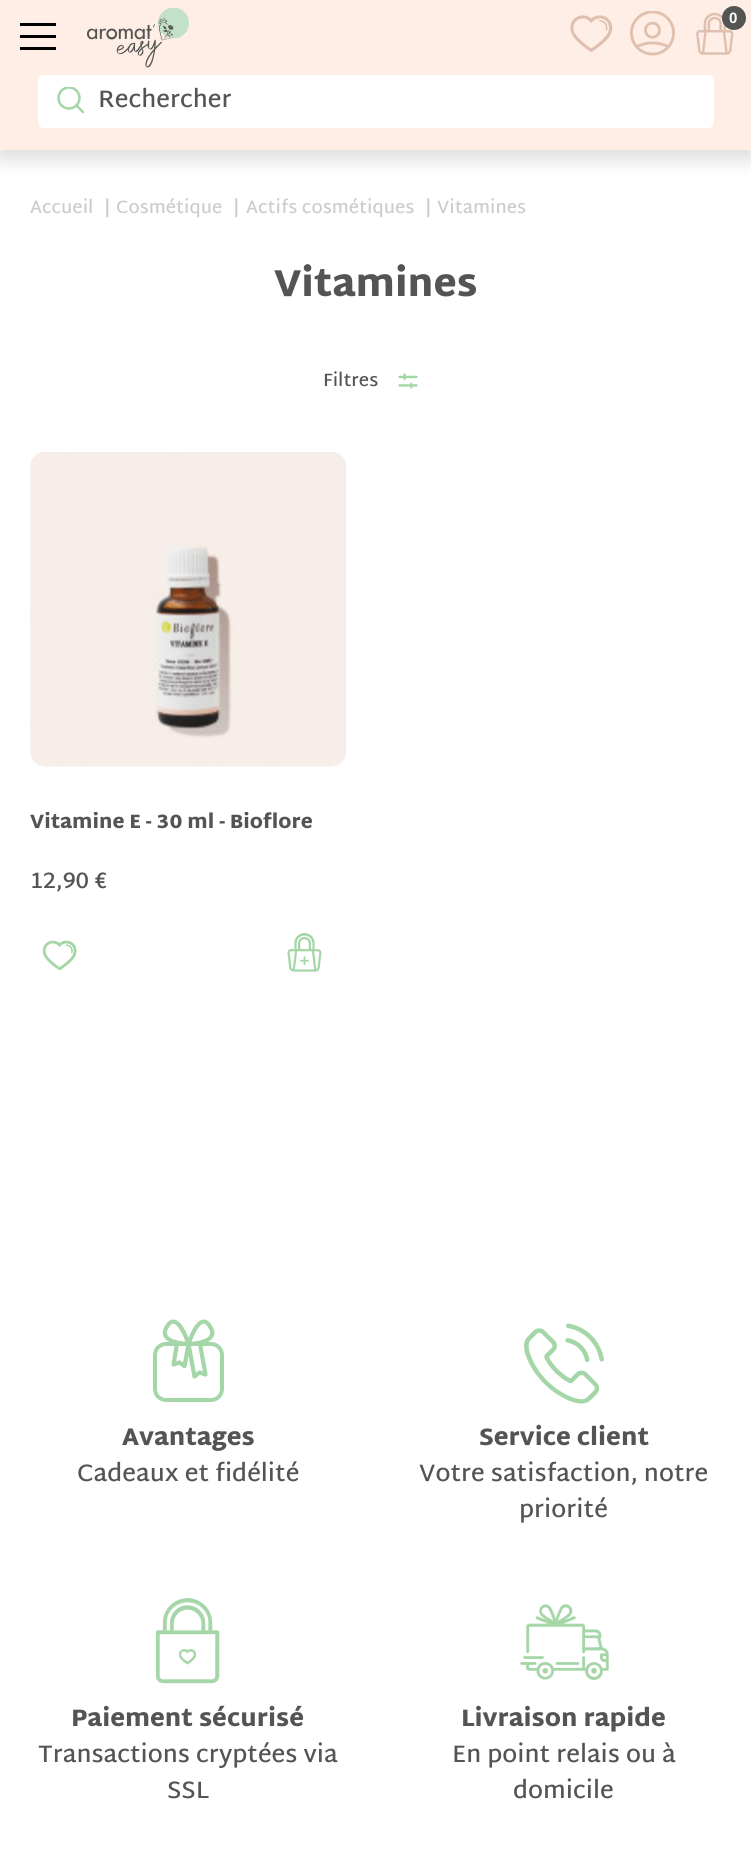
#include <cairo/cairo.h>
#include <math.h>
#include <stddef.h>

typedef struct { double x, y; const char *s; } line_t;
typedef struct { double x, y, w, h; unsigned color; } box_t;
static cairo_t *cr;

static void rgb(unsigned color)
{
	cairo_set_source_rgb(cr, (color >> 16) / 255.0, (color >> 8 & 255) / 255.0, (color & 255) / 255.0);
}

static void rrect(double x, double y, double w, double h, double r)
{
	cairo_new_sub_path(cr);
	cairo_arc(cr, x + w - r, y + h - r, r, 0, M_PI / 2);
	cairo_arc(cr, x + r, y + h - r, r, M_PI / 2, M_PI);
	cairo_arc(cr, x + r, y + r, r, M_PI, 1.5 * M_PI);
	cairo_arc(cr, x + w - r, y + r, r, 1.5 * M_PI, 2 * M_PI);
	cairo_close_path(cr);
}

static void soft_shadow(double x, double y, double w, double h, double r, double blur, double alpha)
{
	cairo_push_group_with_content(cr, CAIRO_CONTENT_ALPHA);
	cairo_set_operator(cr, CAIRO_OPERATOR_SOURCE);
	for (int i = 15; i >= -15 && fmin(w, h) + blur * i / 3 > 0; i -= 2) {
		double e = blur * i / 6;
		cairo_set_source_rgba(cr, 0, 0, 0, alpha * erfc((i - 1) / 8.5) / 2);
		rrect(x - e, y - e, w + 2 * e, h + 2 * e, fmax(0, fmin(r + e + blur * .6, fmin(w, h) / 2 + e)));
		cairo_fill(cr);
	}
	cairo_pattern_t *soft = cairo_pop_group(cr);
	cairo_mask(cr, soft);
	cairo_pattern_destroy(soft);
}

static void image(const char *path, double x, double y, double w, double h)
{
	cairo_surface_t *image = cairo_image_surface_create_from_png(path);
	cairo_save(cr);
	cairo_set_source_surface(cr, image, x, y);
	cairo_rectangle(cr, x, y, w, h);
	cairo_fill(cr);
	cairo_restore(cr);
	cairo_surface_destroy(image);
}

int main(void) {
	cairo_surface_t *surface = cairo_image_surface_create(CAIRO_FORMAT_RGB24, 751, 1852);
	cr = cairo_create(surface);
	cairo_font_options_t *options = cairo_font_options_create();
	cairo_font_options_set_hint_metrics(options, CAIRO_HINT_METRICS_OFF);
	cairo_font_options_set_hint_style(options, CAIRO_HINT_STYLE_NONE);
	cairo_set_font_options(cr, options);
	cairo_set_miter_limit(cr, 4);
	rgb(0xffffff);
	cairo_paint(cr);
	rgb(0x000000);
	soft_shadow(0, 8, 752, 150, 0, 11, 0.15);
	{
		static const box_t items[] = {
			{0, 0, 751, 150, 0xfeeee5},
			{20, 23, 36, 3, 0x000000},
			{20, 35, 36, 3, 0x000000},
			{20, 47, 36, 3, 0x000000},
		};
		for (size_t i = 0; i < sizeof items / sizeof *items; i++) {
			rgb(items[i].color);
			cairo_rectangle(cr, items[i].x, items[i].y, items[i].w, items[i].h);
			cairo_fill(cr);
		}
	}
	image("img/1.png", 87, 8, 102, 60);
	image("img/2.png", 570, 15, 43, 37);
	image("img/3.png", 630, 11, 45, 45);
	image("img/4.png", 696, 12, 38, 43);
	rgb(0x545453);
	cairo_arc(cr, 734, 18, 12, 0, 2 * M_PI);
	cairo_fill(cr);
	rgb(0xffffff);
	rrect(38, 75, 676, 53, 6);
	cairo_fill(cr);
	cairo_save(cr);
	cairo_rectangle(cr, 57, 87, 27, 27);
	cairo_clip(cr);
	cairo_arc(cr, 69, 98, 10.5, 0, 2 * M_PI);
	rgb(0xa5d6a7);
	cairo_set_line_width(cr, 2.5);
	cairo_stroke(cr);
	cairo_restore(cr);
	cairo_new_path(cr);
	cairo_move_to(cr, 76.5, 105.5);
	cairo_line_to(cr, 83, 112);
	rgb(0xa5d6a7);
	cairo_set_line_width(cr, 2.5);
	cairo_set_line_cap(cr, CAIRO_LINE_CAP_ROUND);
	cairo_stroke(cr);
	image("img/5.png", 398, 373, 20, 16);
	image("img/6.png", 30, 452, 316, 315);
	cairo_set_source_rgba(cr, 0.867, 0.867, 0.867, 0.1);
	rrect(30, 452, 317, 315, 15);
	cairo_fill(cr);
	image("img/9.png", 42, 940, 35, 31);
	image("img/7.png", 42, 940, 35, 31);
	image("img/8.png", 287, 933, 35, 39);
	rrect(155, 1344, 67, 56, 11);
	rgb(0xa5d6a7);
	cairo_set_line_width(cr, 4);
	cairo_set_line_cap(cr, CAIRO_LINE_CAP_BUTT);
	cairo_stroke(cr);
	cairo_new_path(cr);
	cairo_move_to(cr, 188.5, 1344);
	cairo_line_to(cr, 194.5, 1376.5);
	cairo_line_to(cr, 199.5, 1372.5);
	cairo_line_to(cr, 205.5, 1374.5);
	cairo_line_to(cr, 200, 1344);
	cairo_move_to(cr, 177, 1344);
	cairo_line_to(cr, 173.5, 1364.5);
	cairo_line_to(cr, 179.5, 1362.5);
	cairo_line_to(cr, 184.5, 1366);
	cairo_line_to(cr, 188.5, 1344);
	cairo_move_to(cr, 188.5, 1344);
	cairo_curve_to(cr, 188.5, 1344, 156.5, 1343.5, 167, 1326.5);
	cairo_curve_to(cr, 177.5, 1309, 188.5, 1344, 188.5, 1344);
	cairo_close_path(cr);
	cairo_move_to(cr, 188.5, 1344);
	cairo_curve_to(cr, 188.5, 1344, 221, 1343.5, 210, 1326.5);
	cairo_curve_to(cr, 199.5, 1309, 188.5, 1344, 188.5, 1344);
	cairo_close_path(cr);
	cairo_set_line_width(cr, 4.2);
	cairo_set_line_cap(cr, CAIRO_LINE_CAP_ROUND);
	cairo_set_line_join(cr, CAIRO_LINE_JOIN_ROUND);
	cairo_stroke(cr);
	image("img/10.png", 524, 1323, 80, 81);
	image("img/11.png", 155, 1598, 65, 86);
	image("img/12.png", 520, 1604, 89, 76);
	cairo_select_font_face(cr, "Liberation Sans", CAIRO_FONT_SLANT_NORMAL, CAIRO_FONT_WEIGHT_BOLD);
	cairo_set_font_size(cr, 15);
	rgb(0xffffff);
	cairo_move_to(cr, 729, 23);
	cairo_show_text(cr, "0");
	cairo_select_font_face(cr, "Martel Sans SemiBold", CAIRO_FONT_SLANT_NORMAL, CAIRO_FONT_WEIGHT_NORMAL);
	cairo_set_font_size(cr, 24);
	rgb(0x545453);
	cairo_move_to(cr, 98, 107);
	cairo_show_text(cr, "Rechercher");
	cairo_set_font_size(cr, 18);
	rgb(0xcccccc);
	{
		static const line_t items[] = {
			{30, 213, "Accueil"},
			{104, 213, "|"},
			{116, 213, "Cosmétique"},
			{233, 213, "|"},
			{246, 213, "Actifs cosmétiques"},
			{425, 213, "|"},
			{437, 213, "Vitamines"},
		};
		for (size_t i = 0; i < sizeof items / sizeof *items; i++) {
			cairo_move_to(cr, items[i].x, items[i].y);
			cairo_show_text(cr, items[i].s);
		}
	}
	cairo_select_font_face(cr, "Martel Sans Black", CAIRO_FONT_SLANT_NORMAL, CAIRO_FONT_WEIGHT_NORMAL);
	cairo_set_font_size(cr, 37.75);
	rgb(0x545453);
	cairo_move_to(cr, 274, 296);
	cairo_show_text(cr, "Vitamines");
	cairo_select_font_face(cr, "Martel Sans SemiBold", CAIRO_FONT_SLANT_NORMAL, CAIRO_FONT_WEIGHT_NORMAL);
	cairo_set_font_size(cr, 18);
	cairo_move_to(cr, 323, 386);
	cairo_show_text(cr, "Filtres");
	cairo_save(cr);
	cairo_rectangle(cr, 30, 812, 317, 45);
	cairo_clip(cr);
	cairo_select_font_face(cr, "Martel Sans Black", CAIRO_FONT_SLANT_NORMAL, CAIRO_FONT_WEIGHT_NORMAL);
	cairo_set_font_size(cr, 19.5);
	cairo_move_to(cr, 30, 828);
	cairo_show_text(cr, "Vitamine E - 30 ml - Bioflore");
	cairo_restore(cr);
	cairo_set_font_size(cr, 22.5);
	cairo_move_to(cr, 30, 888);
	cairo_show_text(cr, "12,90 €");
	cairo_select_font_face(cr, "Martel Sans Black", CAIRO_FONT_SLANT_NORMAL, CAIRO_FONT_WEIGHT_NORMAL);
	cairo_set_font_size(cr, 24);
	cairo_move_to(cr, 122, 1445);
	cairo_show_text(cr, "Avantages");
	cairo_select_font_face(cr, "Martel Sans SemiBold", CAIRO_FONT_SLANT_NORMAL, CAIRO_FONT_WEIGHT_NORMAL);
	cairo_move_to(cr, 77, 1481);
	cairo_show_text(cr, "Cadeaux et fidélité");
	cairo_select_font_face(cr, "Martel Sans Black", CAIRO_FONT_SLANT_NORMAL, CAIRO_FONT_WEIGHT_NORMAL);
	cairo_move_to(cr, 479, 1445);
	cairo_show_text(cr, "Service client");
	cairo_select_font_face(cr, "Martel Sans SemiBold", CAIRO_FONT_SLANT_NORMAL, CAIRO_FONT_WEIGHT_NORMAL);
	cairo_move_to(cr, 419, 1481);
	cairo_show_text(cr, "Votre satisfaction, notre");
	cairo_move_to(cr, 519, 1517);
	cairo_show_text(cr, "priorité");
	cairo_select_font_face(cr, "Martel Sans Black", CAIRO_FONT_SLANT_NORMAL, CAIRO_FONT_WEIGHT_NORMAL);
	cairo_move_to(cr, 71, 1726);
	cairo_show_text(cr, "Paiement sécurisé");
	cairo_select_font_face(cr, "Martel Sans SemiBold", CAIRO_FONT_SLANT_NORMAL, CAIRO_FONT_WEIGHT_NORMAL);
	cairo_move_to(cr, 38, 1762);
	cairo_show_text(cr, "Transactions cryptées via");
	cairo_move_to(cr, 167, 1798);
	cairo_show_text(cr, "SSL");
	cairo_select_font_face(cr, "Martel Sans Black", CAIRO_FONT_SLANT_NORMAL, CAIRO_FONT_WEIGHT_NORMAL);
	cairo_move_to(cr, 461, 1726);
	cairo_show_text(cr, "Livraison rapide");
	cairo_select_font_face(cr, "Martel Sans SemiBold", CAIRO_FONT_SLANT_NORMAL, CAIRO_FONT_WEIGHT_NORMAL);
	cairo_move_to(cr, 452, 1762);
	cairo_show_text(cr, "En point relais ou à");
	cairo_move_to(cr, 513, 1798);
	cairo_show_text(cr, "domicile");
	cairo_surface_write_to_png(surface, "page.png");
	cairo_font_options_destroy(options);
	cairo_destroy(cr);
	cairo_surface_destroy(surface);
	return 0;
}
